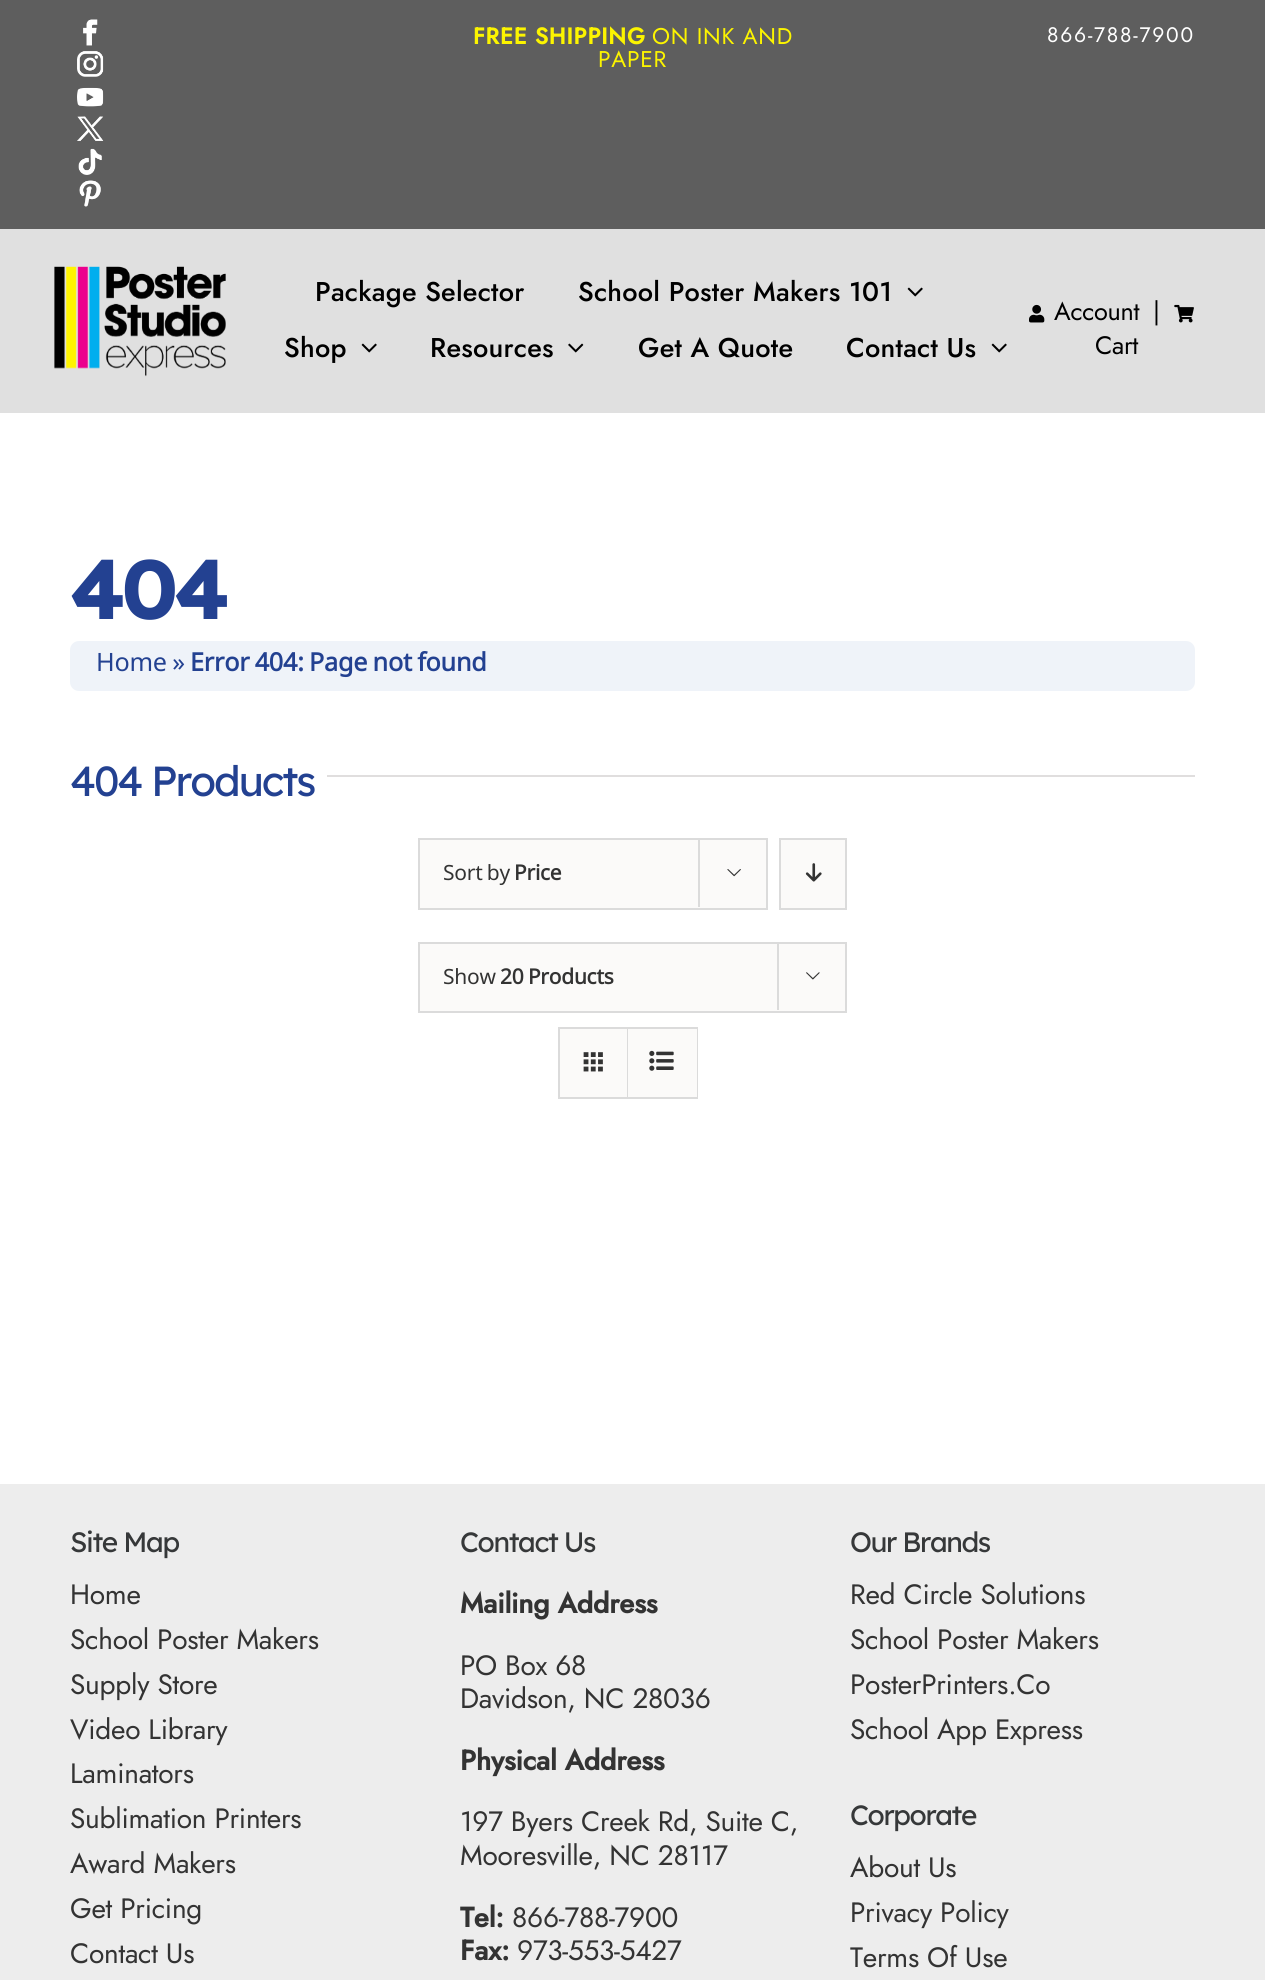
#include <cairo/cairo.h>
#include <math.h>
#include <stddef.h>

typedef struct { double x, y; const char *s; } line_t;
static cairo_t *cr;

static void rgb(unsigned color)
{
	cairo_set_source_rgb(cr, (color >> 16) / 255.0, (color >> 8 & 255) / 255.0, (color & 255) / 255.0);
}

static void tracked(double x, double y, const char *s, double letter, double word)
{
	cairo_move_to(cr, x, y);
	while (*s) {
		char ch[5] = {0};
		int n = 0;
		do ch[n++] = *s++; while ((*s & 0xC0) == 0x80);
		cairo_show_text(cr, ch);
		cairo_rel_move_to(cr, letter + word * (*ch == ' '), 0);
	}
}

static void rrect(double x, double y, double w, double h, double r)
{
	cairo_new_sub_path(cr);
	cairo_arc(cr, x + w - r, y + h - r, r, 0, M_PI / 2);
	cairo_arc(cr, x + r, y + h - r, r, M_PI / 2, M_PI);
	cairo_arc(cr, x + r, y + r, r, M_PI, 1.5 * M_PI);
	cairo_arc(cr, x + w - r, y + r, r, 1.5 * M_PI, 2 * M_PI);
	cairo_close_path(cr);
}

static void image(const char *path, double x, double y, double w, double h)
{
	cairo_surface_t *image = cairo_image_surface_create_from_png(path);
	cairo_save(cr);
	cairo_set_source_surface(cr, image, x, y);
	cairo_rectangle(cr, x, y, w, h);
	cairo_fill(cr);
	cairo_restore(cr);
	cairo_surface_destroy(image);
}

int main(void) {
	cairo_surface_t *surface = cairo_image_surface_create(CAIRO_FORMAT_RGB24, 1265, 1980);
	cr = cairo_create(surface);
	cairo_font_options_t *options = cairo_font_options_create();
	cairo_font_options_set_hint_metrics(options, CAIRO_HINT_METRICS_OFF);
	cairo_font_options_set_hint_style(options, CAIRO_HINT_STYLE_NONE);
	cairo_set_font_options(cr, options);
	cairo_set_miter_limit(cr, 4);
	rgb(0xffffff);
	cairo_paint(cr);
	rgb(0x5e5e5e);
	cairo_rectangle(cr, 0, 0, 1265, 229);
	cairo_fill(cr);
	image("img/1.png", 83, 19, 15, 27);
	image("img/2.png", 77, 51, 27, 26);
	image("img/3.png", 77, 87, 27, 20);
	image("img/4.png", 77, 116, 27, 25);
	image("img/5.png", 78, 148, 24, 27);
	image("img/6.png", 79, 180, 22, 27);
	rgb(0xe0e0e0);
	cairo_rectangle(cr, 0, 229, 1265, 184);
	cairo_fill(cr);
	image("img/7.png", 54, 266, 172, 111);
	image("img/8.png", 907, 287, 16, 10);
	image("img/8.png", 361, 343, 16, 10);
	image("img/9.png", 568, 343, 16, 10);
	image("img/8.png", 991, 343, 16, 10);
	image("img/10.png", 1029, 304, 16, 19);
	image("img/11.png", 1174, 304, 20, 19);
	rgb(0xeff3f9);
	rrect(70, 641, 1125, 50, 9);
	cairo_fill(cr);
	rgb(0xe0dede);
	cairo_rectangle(cr, 327, 775, 868, 2);
	cairo_fill(cr);
	rgb(0xfbfaf9);
	cairo_rectangle(cr, 419, 839, 348, 70);
	cairo_fill_preserve(cr);
	rgb(0xdbdbdb);
	cairo_stroke(cr);
	cairo_rectangle(cr, 698, 838, 2, 69);
	cairo_fill(cr);
	image("img/12.png", 727, 869, 14, 8);
	rgb(0xfbfaf9);
	cairo_rectangle(cr, 780, 839, 66, 70);
	cairo_fill_preserve(cr);
	rgb(0xdbdbdb);
	cairo_stroke(cr);
	image("img/13.png", 805, 863, 17, 19);
	rgb(0xfbfaf9);
	cairo_rectangle(cr, 419, 943, 427, 69);
	cairo_fill_preserve(cr);
	rgb(0xdbdbdb);
	cairo_stroke(cr);
	cairo_rectangle(cr, 777, 942, 2, 68);
	cairo_fill(cr);
	image("img/14.png", 806, 972, 14, 8);
	cairo_rectangle(cr, 559, 1028, 138, 70);
	cairo_stroke(cr);
	rgb(0xfbfaf9);
	cairo_rectangle(cr, 560, 1029, 67, 68);
	cairo_fill(cr);
	rgb(0xdbdbdb);
	cairo_rectangle(cr, 627, 1029, 1, 68);
	cairo_fill(cr);
	image("img/15.png", 583, 1052, 20, 20);
	rgb(0xfbfaf9);
	cairo_rectangle(cr, 628, 1029, 69, 68);
	cairo_fill(cr);
	image("img/16.png", 649, 1050, 25, 21);
	rgb(0xededed);
	cairo_rectangle(cr, 0, 1484, 1265, 496);
	cairo_fill(cr);
	cairo_select_font_face(cr, "Jost", CAIRO_FONT_SLANT_NORMAL, CAIRO_FONT_WEIGHT_BOLD);
	cairo_set_font_size(cr, 22.75);
	rgb(0xfcf400);
	tracked(473, 44, "FREE SHIPPING", 0.75, 0);
	cairo_select_font_face(cr, "Jost", CAIRO_FONT_SLANT_NORMAL, CAIRO_FONT_WEIGHT_NORMAL);
	tracked(652, 44, "ON INK AND", 0.75, 0);
	tracked(598, 67, "PAPER", 0.75, 0);
	cairo_set_font_size(cr, 21);
	rgb(0xffffff);
	tracked(1047, 42, "866-788-7900", 1.75, 0);
	cairo_select_font_face(cr, "Jost Medium", CAIRO_FONT_SLANT_NORMAL, CAIRO_FONT_WEIGHT_NORMAL);
	cairo_set_font_size(cr, 27.1);
	rgb(0x000000);
	{
		static const line_t items[] = {
			{315, 301, "Package Selector"},
			{578, 301, "School Poster Makers 101"},
			{284, 357, "Shop"},
			{430, 357, "Resources"},
			{638, 357, "Get A Quote"},
			{846, 357, "Contact Us"},
		};
		for (size_t i = 0; i < sizeof items / sizeof *items; i++) {
			tracked(items[i].x, items[i].y, items[i].s, 0.25, 0);
		}
	}
	cairo_select_font_face(cr, "Jost", CAIRO_FONT_SLANT_NORMAL, CAIRO_FONT_WEIGHT_NORMAL);
	cairo_set_font_size(cr, 25.25);
	{
		static const line_t items[] = {
			{1054, 320, "Account"},
			{1153, 320, "|"},
			{1095, 354, "Cart"},
		};
		for (size_t i = 0; i < sizeof items / sizeof *items; i++) {
			tracked(items[i].x, items[i].y, items[i].s, -0.25, 0);
		}
	}
	cairo_select_font_face(cr, "Lexend Deca", CAIRO_FONT_SLANT_NORMAL, CAIRO_FONT_WEIGHT_BOLD);
	cairo_set_font_size(cr, 84);
	rgb(0x234191);
	tracked(70, 619, "404", -4, 0);
	cairo_select_font_face(cr, "Noto Sans Marchen", CAIRO_FONT_SLANT_NORMAL, CAIRO_FONT_WEIGHT_NORMAL);
	cairo_set_font_size(cr, 25.25);
	tracked(96, 671, "Home »", -0.25, 0);
	cairo_select_font_face(cr, "Noto Sans Marchen", CAIRO_FONT_SLANT_NORMAL, CAIRO_FONT_WEIGHT_BOLD);
	tracked(190, 671, "Error 404: Page not found", -0.25, 0);
	cairo_select_font_face(cr, "Lexend Deca", CAIRO_FONT_SLANT_NORMAL, CAIRO_FONT_WEIGHT_NORMAL);
	cairo_set_font_size(cr, 42);
	tracked(70, 796, "404 Products", -2.1, 0);
	cairo_select_font_face(cr, "Noto Sans Marchen", CAIRO_FONT_SLANT_NORMAL, CAIRO_FONT_WEIGHT_NORMAL);
	cairo_set_font_size(cr, 21);
	rgb(0x333333);
	tracked(443, 880, "Sort by", -0.25, 0);
	cairo_select_font_face(cr, "Noto Sans Marchen", CAIRO_FONT_SLANT_NORMAL, CAIRO_FONT_WEIGHT_BOLD);
	tracked(514, 880, "Price", -0.25, 0);
	cairo_select_font_face(cr, "Noto Sans Marchen", CAIRO_FONT_SLANT_NORMAL, CAIRO_FONT_WEIGHT_NORMAL);
	tracked(443, 984, "Show", -0.25, 0);
	cairo_select_font_face(cr, "Noto Sans Marchen", CAIRO_FONT_SLANT_NORMAL, CAIRO_FONT_WEIGHT_BOLD);
	tracked(500, 984, "20 Products", -0.25, 0);
	cairo_select_font_face(cr, "Lexend Deca", CAIRO_FONT_SLANT_NORMAL, CAIRO_FONT_WEIGHT_NORMAL);
	cairo_set_font_size(cr, 28);
	rgb(0x363839);
	tracked(70, 1552, "Site Map", -1.4, 0);
	cairo_select_font_face(cr, "Jost", CAIRO_FONT_SLANT_NORMAL, CAIRO_FONT_WEIGHT_NORMAL);
	rgb(0x333333);
	{
		static const line_t items[] = {
			{70, 1604, "Home"},
			{70, 1649, "School Poster Makers"},
			{70, 1694, "Supply Store"},
			{70, 1739, "Video Library"},
			{70, 1783, "Laminators"},
			{70, 1828, "Sublimation Printers"},
			{70, 1873, "Award Makers"},
			{70, 1918, "Get Pricing"},
			{70, 1963, "Contact Us"},
		};
		for (size_t i = 0; i < sizeof items / sizeof *items; i++) {
			tracked(items[i].x, items[i].y, items[i].s, -0.25, 0);
		}
	}
	cairo_select_font_face(cr, "Lexend Deca", CAIRO_FONT_SLANT_NORMAL, CAIRO_FONT_WEIGHT_NORMAL);
	rgb(0x363839);
	tracked(460, 1552, "Contact Us", -1.4, 0);
	cairo_select_font_face(cr, "Jost", CAIRO_FONT_SLANT_NORMAL, CAIRO_FONT_WEIGHT_BOLD);
	rgb(0x333333);
	tracked(460, 1613, "Mailing Address", -0.25, 0);
	cairo_select_font_face(cr, "Jost", CAIRO_FONT_SLANT_NORMAL, CAIRO_FONT_WEIGHT_NORMAL);
	tracked(460, 1675, "PO Box 68", -0.25, 0);
	tracked(460, 1708, "Davidson, NC 28036", -0.25, 0);
	cairo_select_font_face(cr, "Jost", CAIRO_FONT_SLANT_NORMAL, CAIRO_FONT_WEIGHT_BOLD);
	tracked(460, 1770, "Physical Address", -0.25, 0);
	cairo_select_font_face(cr, "Jost", CAIRO_FONT_SLANT_NORMAL, CAIRO_FONT_WEIGHT_NORMAL);
	tracked(460, 1831, "197 Byers Creek Rd, Suite C,", -0.25, 0);
	tracked(460, 1865, "Mooresville, NC 28117", -0.25, 0);
	cairo_select_font_face(cr, "Jost", CAIRO_FONT_SLANT_NORMAL, CAIRO_FONT_WEIGHT_BOLD);
	tracked(460, 1927, "Tel:", -0.25, 0);
	cairo_select_font_face(cr, "Jost", CAIRO_FONT_SLANT_NORMAL, CAIRO_FONT_WEIGHT_NORMAL);
	tracked(512, 1927, "866-788-7900", -0.25, 0);
	cairo_select_font_face(cr, "Jost", CAIRO_FONT_SLANT_NORMAL, CAIRO_FONT_WEIGHT_BOLD);
	tracked(460, 1960, "Fax:", -0.25, 0);
	cairo_select_font_face(cr, "Jost", CAIRO_FONT_SLANT_NORMAL, CAIRO_FONT_WEIGHT_NORMAL);
	tracked(517, 1960, "973-553-5427", -0.25, 0);
	cairo_select_font_face(cr, "Lexend Deca", CAIRO_FONT_SLANT_NORMAL, CAIRO_FONT_WEIGHT_NORMAL);
	rgb(0x363839);
	tracked(850, 1552, "Our Brands", -1.4, 0);
	cairo_select_font_face(cr, "Jost", CAIRO_FONT_SLANT_NORMAL, CAIRO_FONT_WEIGHT_NORMAL);
	rgb(0x333333);
	{
		static const line_t items[] = {
			{850, 1604, "Red Circle Solutions"},
			{850, 1649, "School Poster Makers"},
			{850, 1694, "PosterPrinters.Co"},
			{850, 1739, "School App Express"},
		};
		for (size_t i = 0; i < sizeof items / sizeof *items; i++) {
			tracked(items[i].x, items[i].y, items[i].s, -0.25, 0);
		}
	}
	cairo_select_font_face(cr, "Lexend Deca", CAIRO_FONT_SLANT_NORMAL, CAIRO_FONT_WEIGHT_NORMAL);
	rgb(0x363839);
	tracked(850, 1825, "Corporate", -1.4, 0);
	cairo_select_font_face(cr, "Jost", CAIRO_FONT_SLANT_NORMAL, CAIRO_FONT_WEIGHT_NORMAL);
	rgb(0x333333);
	{
		static const line_t items[] = {
			{850, 1877, "About Us"},
			{850, 1922, "Privacy Policy"},
			{850, 1967, "Terms Of Use"},
		};
		for (size_t i = 0; i < sizeof items / sizeof *items; i++) {
			tracked(items[i].x, items[i].y, items[i].s, -0.25, 0);
		}
	}
	cairo_surface_write_to_png(surface, "page.png");
	cairo_font_options_destroy(options);
	cairo_destroy(cr);
	cairo_surface_destroy(surface);
	return 0;
}
